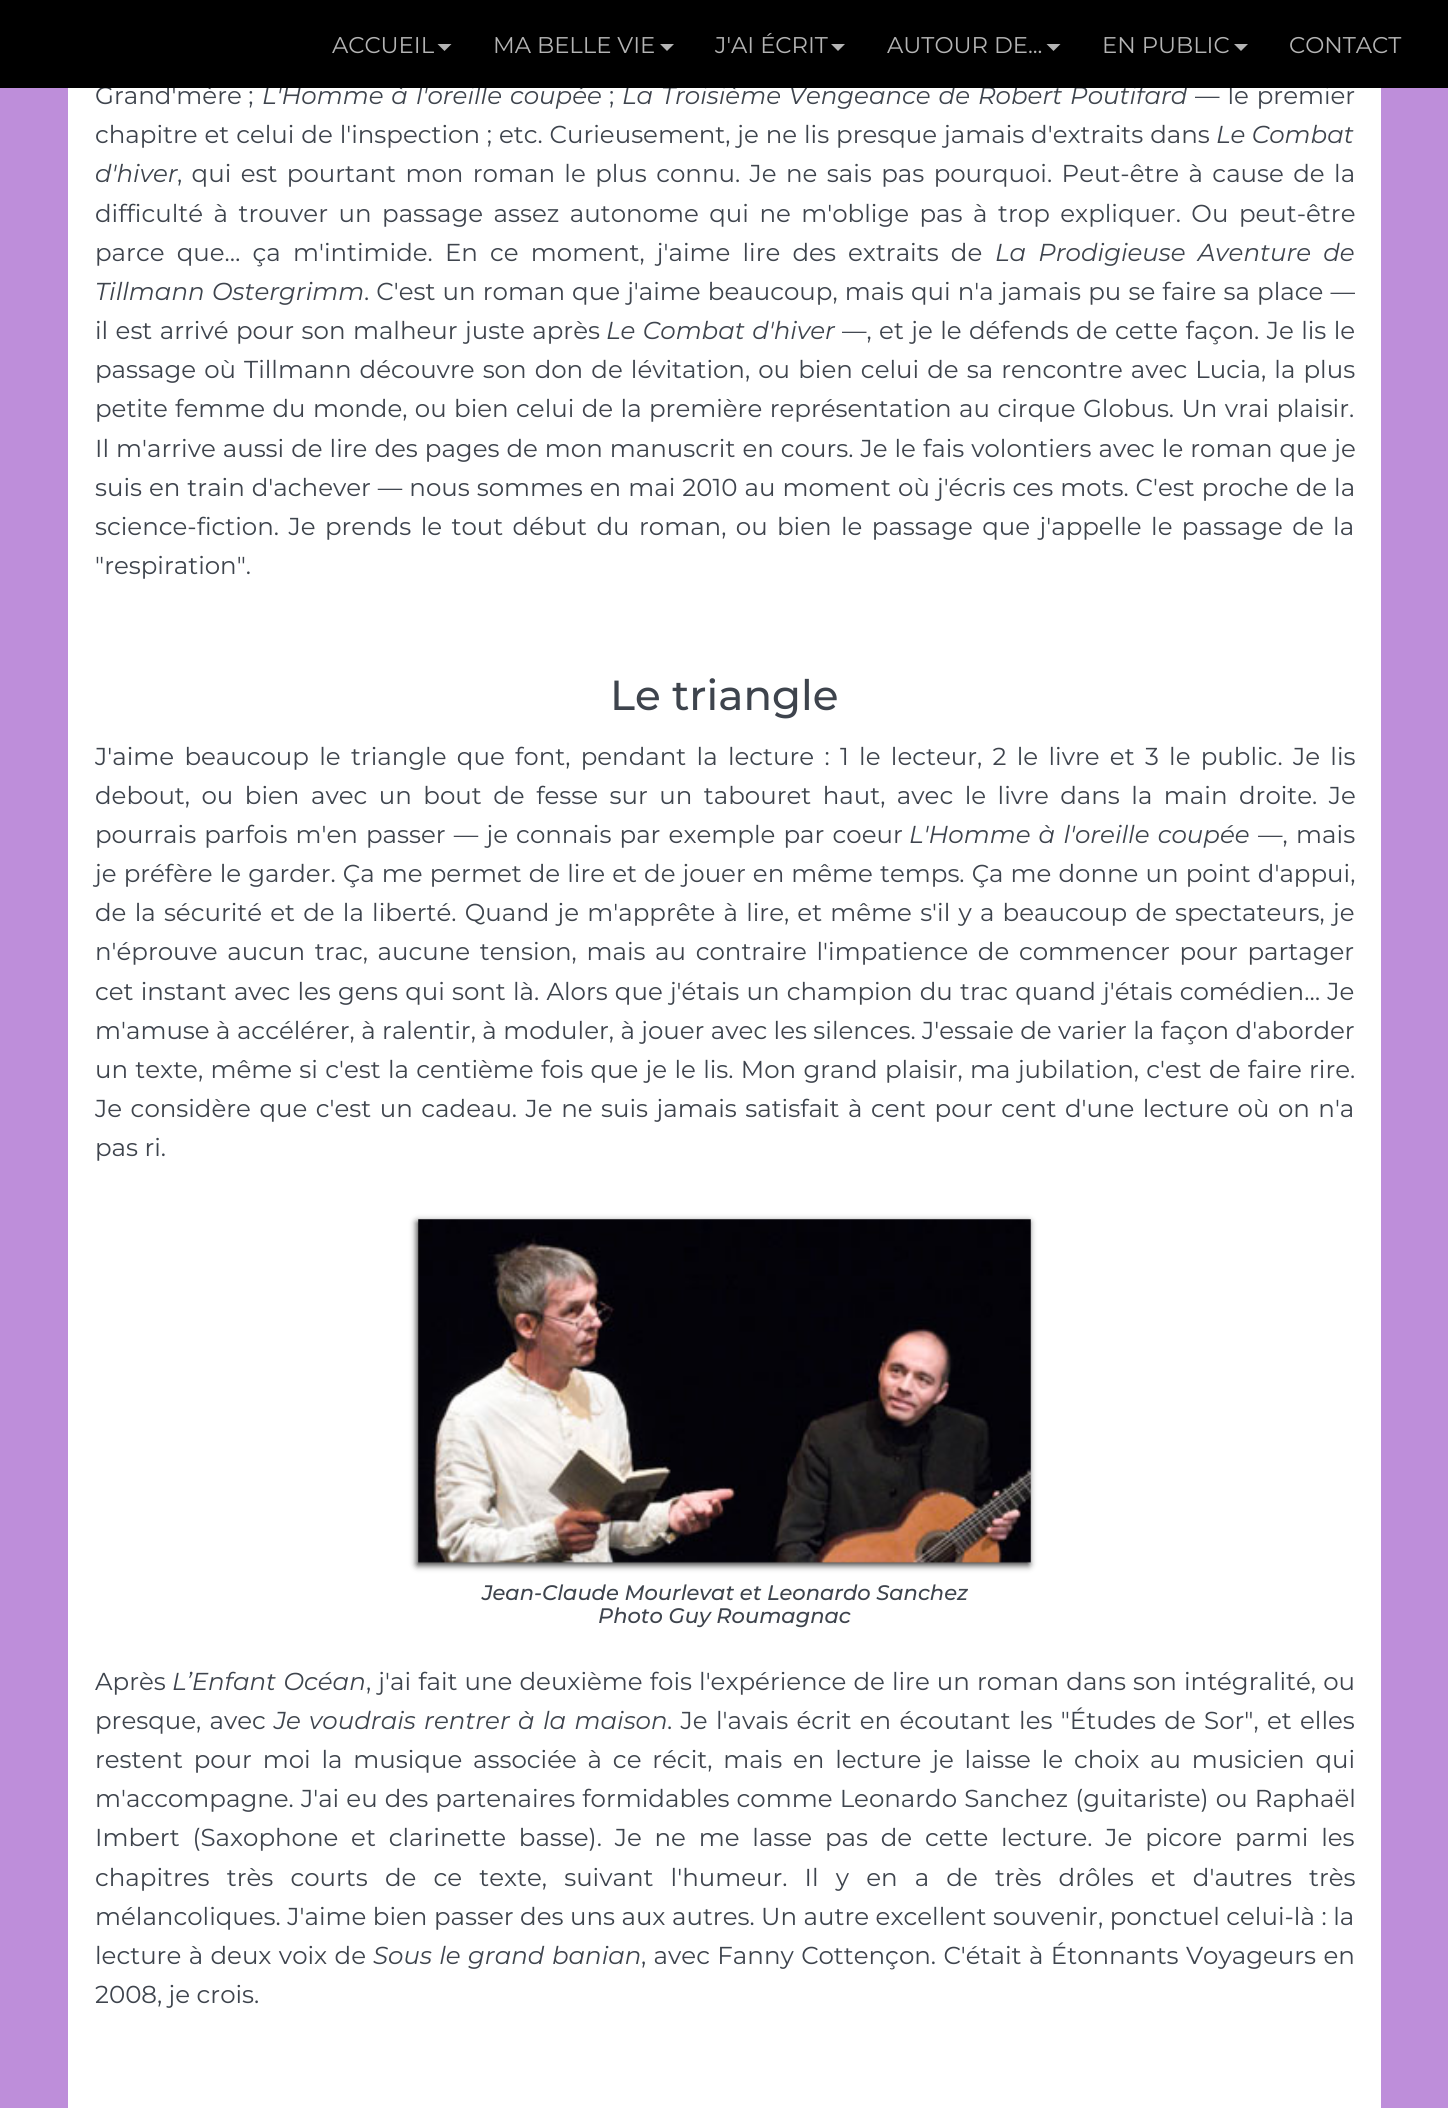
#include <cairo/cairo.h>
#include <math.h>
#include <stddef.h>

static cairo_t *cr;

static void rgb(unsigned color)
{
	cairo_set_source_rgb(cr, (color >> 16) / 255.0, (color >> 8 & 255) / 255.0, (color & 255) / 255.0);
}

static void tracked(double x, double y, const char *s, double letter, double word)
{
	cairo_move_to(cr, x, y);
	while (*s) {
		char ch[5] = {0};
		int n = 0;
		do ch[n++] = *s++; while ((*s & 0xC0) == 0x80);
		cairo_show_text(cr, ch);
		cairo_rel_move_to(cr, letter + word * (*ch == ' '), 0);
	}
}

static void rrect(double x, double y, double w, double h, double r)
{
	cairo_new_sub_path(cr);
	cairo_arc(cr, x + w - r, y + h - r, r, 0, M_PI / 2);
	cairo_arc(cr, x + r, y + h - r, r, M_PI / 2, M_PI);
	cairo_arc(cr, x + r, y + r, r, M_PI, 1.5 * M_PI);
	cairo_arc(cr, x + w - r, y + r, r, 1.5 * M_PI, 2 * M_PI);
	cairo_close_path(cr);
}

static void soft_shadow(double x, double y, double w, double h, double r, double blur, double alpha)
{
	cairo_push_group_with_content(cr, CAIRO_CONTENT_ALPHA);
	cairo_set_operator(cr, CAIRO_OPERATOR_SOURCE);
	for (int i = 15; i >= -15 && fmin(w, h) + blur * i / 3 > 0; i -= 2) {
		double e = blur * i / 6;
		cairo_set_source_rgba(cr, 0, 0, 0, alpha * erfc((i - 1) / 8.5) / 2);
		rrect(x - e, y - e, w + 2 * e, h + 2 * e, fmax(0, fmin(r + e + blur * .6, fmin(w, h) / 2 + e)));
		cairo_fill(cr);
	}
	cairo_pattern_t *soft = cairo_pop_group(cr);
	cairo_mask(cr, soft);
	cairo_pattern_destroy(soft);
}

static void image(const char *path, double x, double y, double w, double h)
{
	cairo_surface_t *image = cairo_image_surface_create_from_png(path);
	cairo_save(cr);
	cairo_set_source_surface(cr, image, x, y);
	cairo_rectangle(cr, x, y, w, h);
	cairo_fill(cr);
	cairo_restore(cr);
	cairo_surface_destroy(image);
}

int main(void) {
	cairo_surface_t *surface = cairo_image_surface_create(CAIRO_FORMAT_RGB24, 1448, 2108);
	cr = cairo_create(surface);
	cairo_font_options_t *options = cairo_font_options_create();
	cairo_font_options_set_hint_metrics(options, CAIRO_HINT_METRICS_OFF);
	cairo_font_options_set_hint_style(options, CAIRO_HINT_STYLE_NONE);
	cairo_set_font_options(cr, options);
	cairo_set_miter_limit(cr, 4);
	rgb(0xbe8eda);
	cairo_paint(cr);
	rgb(0xffffff);
	cairo_rectangle(cr, 68, 88, 1313, 2020);
	cairo_fill(cr);
	rgb(0x333333);
	soft_shadow(417, 1222, 612, 343, 0, 3.5, 1);
	image("img/1.png", 418, 1219, 613, 344);
	cairo_select_font_face(cr, "Montserrat", CAIRO_FONT_SLANT_NORMAL, CAIRO_FONT_WEIGHT_NORMAL);
	cairo_set_font_size(cr, 24.5);
	rgb(0x3e444d);
	cairo_move_to(cr, 95, 104);
	cairo_show_text(cr, "Grand'mère ;");
	cairo_select_font_face(cr, "Montserrat", CAIRO_FONT_SLANT_ITALIC, CAIRO_FONT_WEIGHT_NORMAL);
	tracked(262, 104, "L'Homme à l'oreille coupée", 0, 1.5);
	cairo_select_font_face(cr, "Montserrat", CAIRO_FONT_SLANT_NORMAL, CAIRO_FONT_WEIGHT_NORMAL);
	cairo_move_to(cr, 609, 104);
	cairo_show_text(cr, ";");
	cairo_select_font_face(cr, "Montserrat", CAIRO_FONT_SLANT_ITALIC, CAIRO_FONT_WEIGHT_NORMAL);
	tracked(622, 104, "La Troisième Vengeance de Robert Poutifard", 0, 1.5);
	cairo_select_font_face(cr, "Montserrat", CAIRO_FONT_SLANT_NORMAL, CAIRO_FONT_WEIGHT_NORMAL);
	tracked(1195, 104, "— le premier", 0, 1.5);
	rgb(0x000000);
	cairo_rectangle(cr, 0, 0, 1448, 88);
	cairo_fill(cr);
	cairo_set_font_size(cr, 22.75);
	rgb(0xb4b4b4);
	cairo_move_to(cr, 1289, 53);
	cairo_show_text(cr, "CONTACT");
	cairo_new_path(cr);
	cairo_move_to(cr, 1234, 44);
	cairo_line_to(cr, 1248, 44);
	cairo_line_to(cr, 1241, 51);
	cairo_close_path(cr);
	cairo_fill(cr);
	cairo_move_to(cr, 1102, 53);
	cairo_show_text(cr, "EN PUBLIC");
	cairo_new_path(cr);
	cairo_move_to(cr, 1046.5, 44);
	cairo_line_to(cr, 1060.5, 44);
	cairo_line_to(cr, 1053.5, 51);
	cairo_close_path(cr);
	cairo_fill(cr);
	cairo_move_to(cr, 887, 53);
	cairo_show_text(cr, "AUTOUR DE...");
	cairo_new_path(cr);
	cairo_move_to(cr, 831, 44);
	cairo_line_to(cr, 845, 44);
	cairo_line_to(cr, 838, 51);
	cairo_close_path(cr);
	cairo_fill(cr);
	cairo_move_to(cr, 715, 53);
	cairo_show_text(cr, "J'AI ÉCRIT");
	cairo_new_path(cr);
	cairo_move_to(cr, 660, 44);
	cairo_line_to(cr, 674, 44);
	cairo_line_to(cr, 667, 51);
	cairo_close_path(cr);
	cairo_fill(cr);
	cairo_move_to(cr, 493, 53);
	cairo_show_text(cr, "MA BELLE VIE");
	cairo_new_path(cr);
	cairo_move_to(cr, 437.5, 44);
	cairo_line_to(cr, 451.5, 44);
	cairo_line_to(cr, 444.5, 51);
	cairo_close_path(cr);
	cairo_fill(cr);
	cairo_move_to(cr, 332, 53);
	cairo_show_text(cr, "ACCUEIL");
	cairo_set_font_size(cr, 24.5);
	rgb(0x3e444d);
	tracked(95, 143, "chapitre et celui de l'inspection ; etc. Curieusement, je ne lis presque jamais d'extraits dans", 0, 0.5);
	cairo_select_font_face(cr, "Montserrat", CAIRO_FONT_SLANT_ITALIC, CAIRO_FONT_WEIGHT_NORMAL);
	cairo_move_to(cr, 1216, 143);
	cairo_show_text(cr, "Le Combat");
	cairo_move_to(cr, 95, 182);
	cairo_show_text(cr, "d'hiver");
	cairo_select_font_face(cr, "Montserrat", CAIRO_FONT_SLANT_NORMAL, CAIRO_FONT_WEIGHT_NORMAL);
	tracked(177, 182, ", qui est pourtant mon roman le plus connu. Je ne sais pas pourquoi. Peut-être à cause de la", 0, 3);
	tracked(95, 222, "difficulté à trouver un passage assez autonome qui ne m'oblige pas à trop expliquer. Ou peut-être", 0, 4.1);
	tracked(95, 261, "parce que… ça m'intimide. En ce moment, j'aime lire des extraits de", 0, 5.75);
	cairo_select_font_face(cr, "Montserrat", CAIRO_FONT_SLANT_ITALIC, CAIRO_FONT_WEIGHT_NORMAL);
	tracked(995, 261, "La Prodigieuse Aventure de", 0, 5.75);
	tracked(95, 300, "Tillmann Ostergrimm", 0, 1);
	cairo_select_font_face(cr, "Montserrat", CAIRO_FONT_SLANT_NORMAL, CAIRO_FONT_WEIGHT_NORMAL);
	tracked(364, 300, ". C'est un roman que j'aime beaucoup, mais qui n'a jamais pu se faire sa place —", 0, 0.75);
	tracked(95, 339, "il est arrivé pour son malheur juste après", 0, 1);
	cairo_select_font_face(cr, "Montserrat", CAIRO_FONT_SLANT_ITALIC, CAIRO_FONT_WEIGHT_NORMAL);
	tracked(606, 339, "Le Combat d'hiver", 0, 1);
	cairo_select_font_face(cr, "Montserrat", CAIRO_FONT_SLANT_NORMAL, CAIRO_FONT_WEIGHT_NORMAL);
	tracked(842, 339, "—, et je le défends de cette façon. Je lis le", 0, 1);
	tracked(95, 378, "passage où Tillmann découvre son don de lévitation, ou bien celui de sa rencontre avec Lucia, la plus", 0, 1.7);
	tracked(95, 417, "petite femme du monde, ou bien celui de la première représentation au cirque Globus. Un vrai plaisir.", 0, 1);
	tracked(95, 457, "Il m'arrive aussi de lire des pages de mon manuscrit en cours. Je le fais volontiers avec le roman que je", 0, 0.6);
	tracked(95, 496, "suis en train d'achever — nous sommes en mai 2010 au moment où j'écris ces mots. C'est proche de la", 0, 0.6);
	tracked(95, 535, "science-fiction. Je prends le tout début du roman, ou bien le passage que j'appelle le passage de la", 0, 3);
	cairo_move_to(cr, 95, 574);
	cairo_show_text(cr, "\"respiration\".");
	cairo_select_font_face(cr, "Montserrat Medium", CAIRO_FONT_SLANT_NORMAL, CAIRO_FONT_WEIGHT_NORMAL);
	cairo_set_font_size(cr, 42);
	cairo_move_to(cr, 610, 710);
	cairo_show_text(cr, "Le triangle");
	cairo_select_font_face(cr, "Montserrat", CAIRO_FONT_SLANT_NORMAL, CAIRO_FONT_WEIGHT_NORMAL);
	cairo_set_font_size(cr, 24.5);
	tracked(95, 765, "J'aime beaucoup le triangle que font, pendant la lecture : 1 le lecteur, 2 le livre et 3 le public. Je lis", 0, 3.9);
	tracked(95, 804, "debout, ou bien avec un bout de fesse sur un tabouret haut, avec le livre dans la main droite. Je", 0, 5.1);
	tracked(95, 843, "pourrais parfois m'en passer — je connais par exemple par coeur", 0, 1.75);
	cairo_select_font_face(cr, "Montserrat", CAIRO_FONT_SLANT_ITALIC, CAIRO_FONT_WEIGHT_NORMAL);
	tracked(909, 843, "L'Homme à l'oreille coupée", 0, 1.75);
	cairo_select_font_face(cr, "Montserrat", CAIRO_FONT_SLANT_NORMAL, CAIRO_FONT_WEIGHT_NORMAL);
	tracked(1258, 843, "—, mais", 0, 2);
	tracked(95, 882, "je préfère le garder. Ça me permet de lire et de jouer en même temps. Ça me donne un point d'appui,", 0, 0.7);
	tracked(95, 921, "de la sécurité et de la liberté. Quand je m'apprête à lire, et même s'il y a beaucoup de spectateurs, je", 0, 1.8);
	tracked(95, 960, "n'éprouve aucun trac, aucune tension, mais au contraire l'impatience de commencer pour partager", 0, 3.25);
	tracked(95, 1000, "cet instant avec les gens qui sont là. Alors que j'étais un champion du trac quand j'étais comédien… Je", 0, 0.75);
	cairo_move_to(cr, 95, 1039);
	cairo_show_text(cr, "m'amuse à accélérer, à ralentir, à moduler, à jouer avec les silences. J'essaie de varier la façon d'aborder");
	tracked(95, 1078, "un texte, même si c'est la centième fois que je le lis. Mon grand plaisir, ma jubilation, c'est de faire rire.", 0, 0.9);
	tracked(95, 1117, "Je considère que c'est un cadeau. Je ne suis jamais satisfait à cent pour cent d'une lecture où on n'a", 0, 2.1);
	cairo_move_to(cr, 95, 1156);
	cairo_show_text(cr, "pas ri.");
	cairo_select_font_face(cr, "Montserrat Medium", CAIRO_FONT_SLANT_ITALIC, CAIRO_FONT_WEIGHT_NORMAL);
	cairo_set_font_size(cr, 21);
	cairo_move_to(cr, 482, 1600);
	cairo_show_text(cr, "Jean-Claude Mourlevat et Leonardo Sanchez");
	cairo_move_to(cr, 598, 1623);
	cairo_show_text(cr, "Photo Guy Roumagnac");
	cairo_select_font_face(cr, "Montserrat", CAIRO_FONT_SLANT_NORMAL, CAIRO_FONT_WEIGHT_NORMAL);
	cairo_set_font_size(cr, 24.5);
	cairo_move_to(cr, 95, 1690);
	cairo_show_text(cr, "Après");
	cairo_select_font_face(cr, "Montserrat", CAIRO_FONT_SLANT_ITALIC, CAIRO_FONT_WEIGHT_NORMAL);
	tracked(172, 1690, "L’Enfant Océan", 0, 1);
	cairo_select_font_face(cr, "Montserrat", CAIRO_FONT_SLANT_NORMAL, CAIRO_FONT_WEIGHT_NORMAL);
	tracked(366, 1690, ", j'ai fait une deuxième fois l'expérience de lire un roman dans son intégralité, ou", 0, 0.7);
	tracked(95, 1729, "presque, avec", 0, 1.9);
	cairo_select_font_face(cr, "Montserrat", CAIRO_FONT_SLANT_ITALIC, CAIRO_FONT_WEIGHT_NORMAL);
	tracked(274, 1729, "Je voudrais rentrer à la maison", 0, 1.9);
	cairo_select_font_face(cr, "Montserrat", CAIRO_FONT_SLANT_NORMAL, CAIRO_FONT_WEIGHT_NORMAL);
	tracked(667, 1729, ". Je l'avais écrit en écoutant les \"Études de Sor\", et elles", 0, 1.9);
	tracked(95, 1768, "restent pour moi la musique associée à ce récit, mais en lecture je laisse le choix au musicien qui", 0, 4.4);
	tracked(95, 1807, "m'accompagne. J'ai eu des partenaires formidables comme Leonardo Sanchez (guitariste) ou Raphaël", 0, 0.75);
	tracked(95, 1846, "Imbert (Saxophone et clarinette basse). Je ne me lasse pas de cette lecture. Je picore parmi les", 0, 6.4);
	tracked(95, 1886, "chapitres très courts de ce texte, suivant l'humeur. Il y en a de très drôles et d'autres très", 0, 10.75);
	tracked(95, 1925, "mélancoliques. J'aime bien passer des uns aux autres. Un autre excellent souvenir, ponctuel celui-là : la", 0, 0.1);
	tracked(95, 1964, "lecture à deux voix de", 0, 1);
	cairo_select_font_face(cr, "Montserrat", CAIRO_FONT_SLANT_ITALIC, CAIRO_FONT_WEIGHT_NORMAL);
	tracked(373, 1964, "Sous le grand banian", 0, 1);
	cairo_select_font_face(cr, "Montserrat", CAIRO_FONT_SLANT_NORMAL, CAIRO_FONT_WEIGHT_NORMAL);
	tracked(641, 1964, ", avec Fanny Cottençon. C'était à Étonnants Voyageurs en", 0, 1);
	cairo_move_to(cr, 95, 2003);
	cairo_show_text(cr, "2008, je crois.");
	cairo_surface_write_to_png(surface, "page.png");
	cairo_font_options_destroy(options);
	cairo_destroy(cr);
	cairo_surface_destroy(surface);
	return 0;
}
